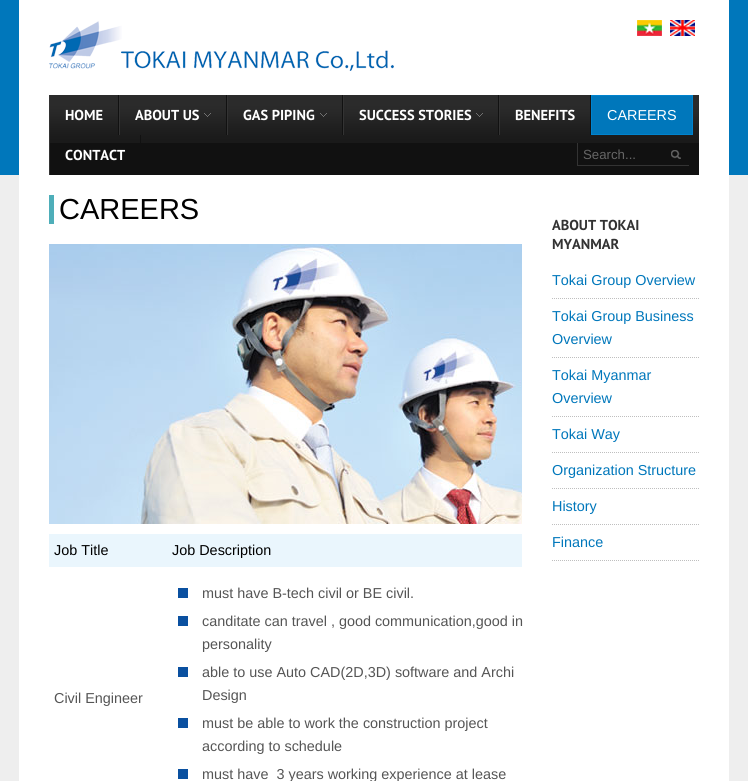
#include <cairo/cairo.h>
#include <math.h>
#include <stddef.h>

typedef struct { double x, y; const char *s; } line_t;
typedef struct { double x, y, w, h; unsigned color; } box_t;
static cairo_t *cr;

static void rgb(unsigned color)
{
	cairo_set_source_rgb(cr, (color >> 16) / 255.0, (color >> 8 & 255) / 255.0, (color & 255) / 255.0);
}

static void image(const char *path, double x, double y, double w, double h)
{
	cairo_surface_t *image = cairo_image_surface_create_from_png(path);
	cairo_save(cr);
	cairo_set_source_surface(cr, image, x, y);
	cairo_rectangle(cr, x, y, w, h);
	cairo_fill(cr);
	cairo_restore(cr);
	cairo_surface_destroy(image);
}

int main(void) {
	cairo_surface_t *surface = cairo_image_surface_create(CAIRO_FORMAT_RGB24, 748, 781);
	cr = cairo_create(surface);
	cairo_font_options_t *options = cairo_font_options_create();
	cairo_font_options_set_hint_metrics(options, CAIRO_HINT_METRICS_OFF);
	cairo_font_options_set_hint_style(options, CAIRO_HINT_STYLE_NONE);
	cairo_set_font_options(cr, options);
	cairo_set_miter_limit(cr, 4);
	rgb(0xeeeeee);
	cairo_paint(cr);
	rgb(0x0077bb);
	cairo_rectangle(cr, 0, 0, 748, 175);
	cairo_fill(cr);
	rgb(0xffffff);
	cairo_rectangle(cr, 19, 0, 710, 175);
	cairo_fill(cr);
	image("img/1.png", 49, 21, 345, 50);
	image("img/2.png", 637, 20, 25, 16);
	image("img/3.png", 670, 20, 25, 16);
	rgb(0x111111);
	cairo_rectangle(cr, 50, 143, 649, 32);
	cairo_fill(cr);
	image("img/4.png", 50, 95, 649, 48);
	{
		static const box_t items[] = {
			{118, 95, 1, 40, 0x111111},
			{49, 95, 1, 80, 0x333333},
			{226, 95, 1, 40, 0x111111},
			{119, 95, 1, 40, 0x333333},
		};
		for (size_t i = 0; i < sizeof items / sizeof *items; i++) {
			rgb(items[i].color);
			cairo_rectangle(cr, items[i].x, items[i].y, items[i].w, items[i].h);
			cairo_fill(cr);
		}
	}
	image("img/5.png", 204, 113, 7, 4);
	rgb(0x111111);
	cairo_rectangle(cr, 342, 95, 1, 40);
	cairo_fill(cr);
	rgb(0x333333);
	cairo_rectangle(cr, 227, 95, 1, 40);
	cairo_fill(cr);
	image("img/5.png", 320, 113, 7, 4);
	rgb(0x111111);
	cairo_rectangle(cr, 498, 95, 1, 40);
	cairo_fill(cr);
	rgb(0x333333);
	cairo_rectangle(cr, 343, 95, 1, 40);
	cairo_fill(cr);
	image("img/5.png", 476, 113, 7, 4);
	rgb(0x111111);
	cairo_rectangle(cr, 590, 95, 1, 40);
	cairo_fill(cr);
	rgb(0x333333);
	cairo_rectangle(cr, 499, 95, 1, 40);
	cairo_fill(cr);
	rgb(0x0077bb);
	cairo_rectangle(cr, 591.5, 95.5, 101, 39);
	cairo_fill_preserve(cr);
	rgb(0x0083ce);
	cairo_set_line_width(cr, 1);
	cairo_stroke(cr);
	rgb(0x111111);
	cairo_rectangle(cr, 140, 135, 1, 8);
	cairo_fill(cr);
	image("img/6.png", 671, 150, 10, 9);
	{
		static const box_t items[] = {
			{577, 165, 112, 1, 0x333333},
			{577, 143, 1, 23, 0x333333},
			{19, 175, 710, 606, 0xffffff},
			{49, 195, 5, 29, 0x4eaeb9},
		};
		for (size_t i = 0; i < sizeof items / sizeof *items; i++) {
			rgb(items[i].color);
			cairo_rectangle(cr, items[i].x, items[i].y, items[i].w, items[i].h);
			cairo_fill(cr);
		}
	}
	image("img/7.png", 49, 244, 473, 280);
	{
		static const box_t items[] = {
			{49, 534, 473, 33, 0xeaf6fd},
			{178, 588, 10, 10, 0x0a50a0},
			{178, 616, 10, 10, 0x0a50a0},
			{178, 667, 10, 10, 0x0a50a0},
			{178, 718, 10, 10, 0x0a50a0},
			{178, 769, 10, 10, 0x0a50a0},
		};
		for (size_t i = 0; i < sizeof items / sizeof *items; i++) {
			rgb(items[i].color);
			cairo_rectangle(cr, items[i].x, items[i].y, items[i].w, items[i].h);
			cairo_fill(cr);
		}
	}
	cairo_new_path(cr);
	cairo_move_to(cr, 552, 298.5);
	cairo_line_to(cr, 699, 298.5);
	rgb(0xbfbfbf);
	cairo_set_dash(cr, (double[]){1, 1}, 2, 0);
	cairo_stroke(cr);
	cairo_new_path(cr);
	cairo_move_to(cr, 552, 357.5);
	cairo_line_to(cr, 699, 357.5);
	cairo_stroke(cr);
	cairo_new_path(cr);
	cairo_move_to(cr, 552, 416.5);
	cairo_line_to(cr, 699, 416.5);
	cairo_stroke(cr);
	cairo_new_path(cr);
	cairo_move_to(cr, 552, 452.5);
	cairo_line_to(cr, 699, 452.5);
	cairo_stroke(cr);
	cairo_new_path(cr);
	cairo_move_to(cr, 552, 488.5);
	cairo_line_to(cr, 699, 488.5);
	cairo_stroke(cr);
	cairo_new_path(cr);
	cairo_move_to(cr, 552, 524.5);
	cairo_line_to(cr, 699, 524.5);
	cairo_stroke(cr);
	cairo_new_path(cr);
	cairo_move_to(cr, 552, 560.5);
	cairo_line_to(cr, 699, 560.5);
	cairo_stroke(cr);
	cairo_select_font_face(cr, "PT Sans", CAIRO_FONT_SLANT_NORMAL, CAIRO_FONT_WEIGHT_BOLD);
	cairo_set_font_size(cr, 14.4);
	rgb(0xffffff);
	{
		static const line_t items[] = {
			{65, 120, "HOME"},
			{135, 120, "ABOUT US"},
			{243, 120, "GAS PIPING"},
			{359, 120, "SUCCESS STORIES"},
			{515, 120, "BENEFITS"},
		};
		for (size_t i = 0; i < sizeof items / sizeof *items; i++) {
			cairo_move_to(cr, items[i].x, items[i].y);
			cairo_show_text(cr, items[i].s);
		}
	}
	cairo_select_font_face(cr, "Liberation Sans", CAIRO_FONT_SLANT_NORMAL, CAIRO_FONT_WEIGHT_NORMAL);
	cairo_move_to(cr, 607, 120);
	cairo_show_text(cr, "CAREERS");
	cairo_select_font_face(cr, "PT Sans", CAIRO_FONT_SLANT_NORMAL, CAIRO_FONT_WEIGHT_BOLD);
	cairo_move_to(cr, 65, 160);
	cairo_show_text(cr, "CONTACT");
	cairo_select_font_face(cr, "Liberation Sans", CAIRO_FONT_SLANT_NORMAL, CAIRO_FONT_WEIGHT_NORMAL);
	cairo_set_font_size(cr, 13.25);
	rgb(0x666666);
	cairo_move_to(cr, 583, 159);
	cairo_show_text(cr, "Search...");
	cairo_set_font_size(cr, 29);
	rgb(0x000000);
	cairo_move_to(cr, 59, 219);
	cairo_show_text(cr, "CAREERS");
	cairo_set_font_size(cr, 14.4);
	cairo_move_to(cr, 54, 555);
	cairo_show_text(cr, "Job Title");
	cairo_move_to(cr, 172, 555);
	cairo_show_text(cr, "Job Description");
	rgb(0x555555);
	{
		static const line_t items[] = {
			{54, 703, "Civil Engineer"},
			{202, 598, "must have B-tech civil or BE civil."},
			{202, 626, "canditate can travel , good communication,good in"},
			{202, 649, "personality"},
			{202, 677, "able to use Auto CAD(2D,3D) software and Archi"},
			{202, 700, "Design"},
			{202, 728, "must be able to work the construction project"},
			{202, 751, "according to schedule"},
			{202, 779, "must have  3 years working experience at lease"},
		};
		for (size_t i = 0; i < sizeof items / sizeof *items; i++) {
			cairo_move_to(cr, items[i].x, items[i].y);
			cairo_show_text(cr, items[i].s);
		}
	}
	cairo_select_font_face(cr, "PT Sans", CAIRO_FONT_SLANT_NORMAL, CAIRO_FONT_WEIGHT_BOLD);
	rgb(0x333333);
	cairo_move_to(cr, 552, 230);
	cairo_show_text(cr, "ABOUT TOKAI");
	cairo_move_to(cr, 552, 249);
	cairo_show_text(cr, "MYANMAR");
	cairo_select_font_face(cr, "Liberation Sans", CAIRO_FONT_SLANT_NORMAL, CAIRO_FONT_WEIGHT_NORMAL);
	rgb(0x0077bb);
	{
		static const line_t items[] = {
			{552, 285, "Tokai Group Overview"},
			{552, 321, "Tokai Group Business"},
			{552, 344, "Overview"},
			{552, 380, "Tokai Myanmar"},
			{552, 403, "Overview"},
			{552, 439, "Tokai Way"},
			{552, 475, "Organization Structure"},
			{552, 511, "History"},
			{552, 547, "Finance"},
		};
		for (size_t i = 0; i < sizeof items / sizeof *items; i++) {
			cairo_move_to(cr, items[i].x, items[i].y);
			cairo_show_text(cr, items[i].s);
		}
	}
	cairo_surface_write_to_png(surface, "page.png");
	cairo_font_options_destroy(options);
	cairo_destroy(cr);
	cairo_surface_destroy(surface);
	return 0;
}
